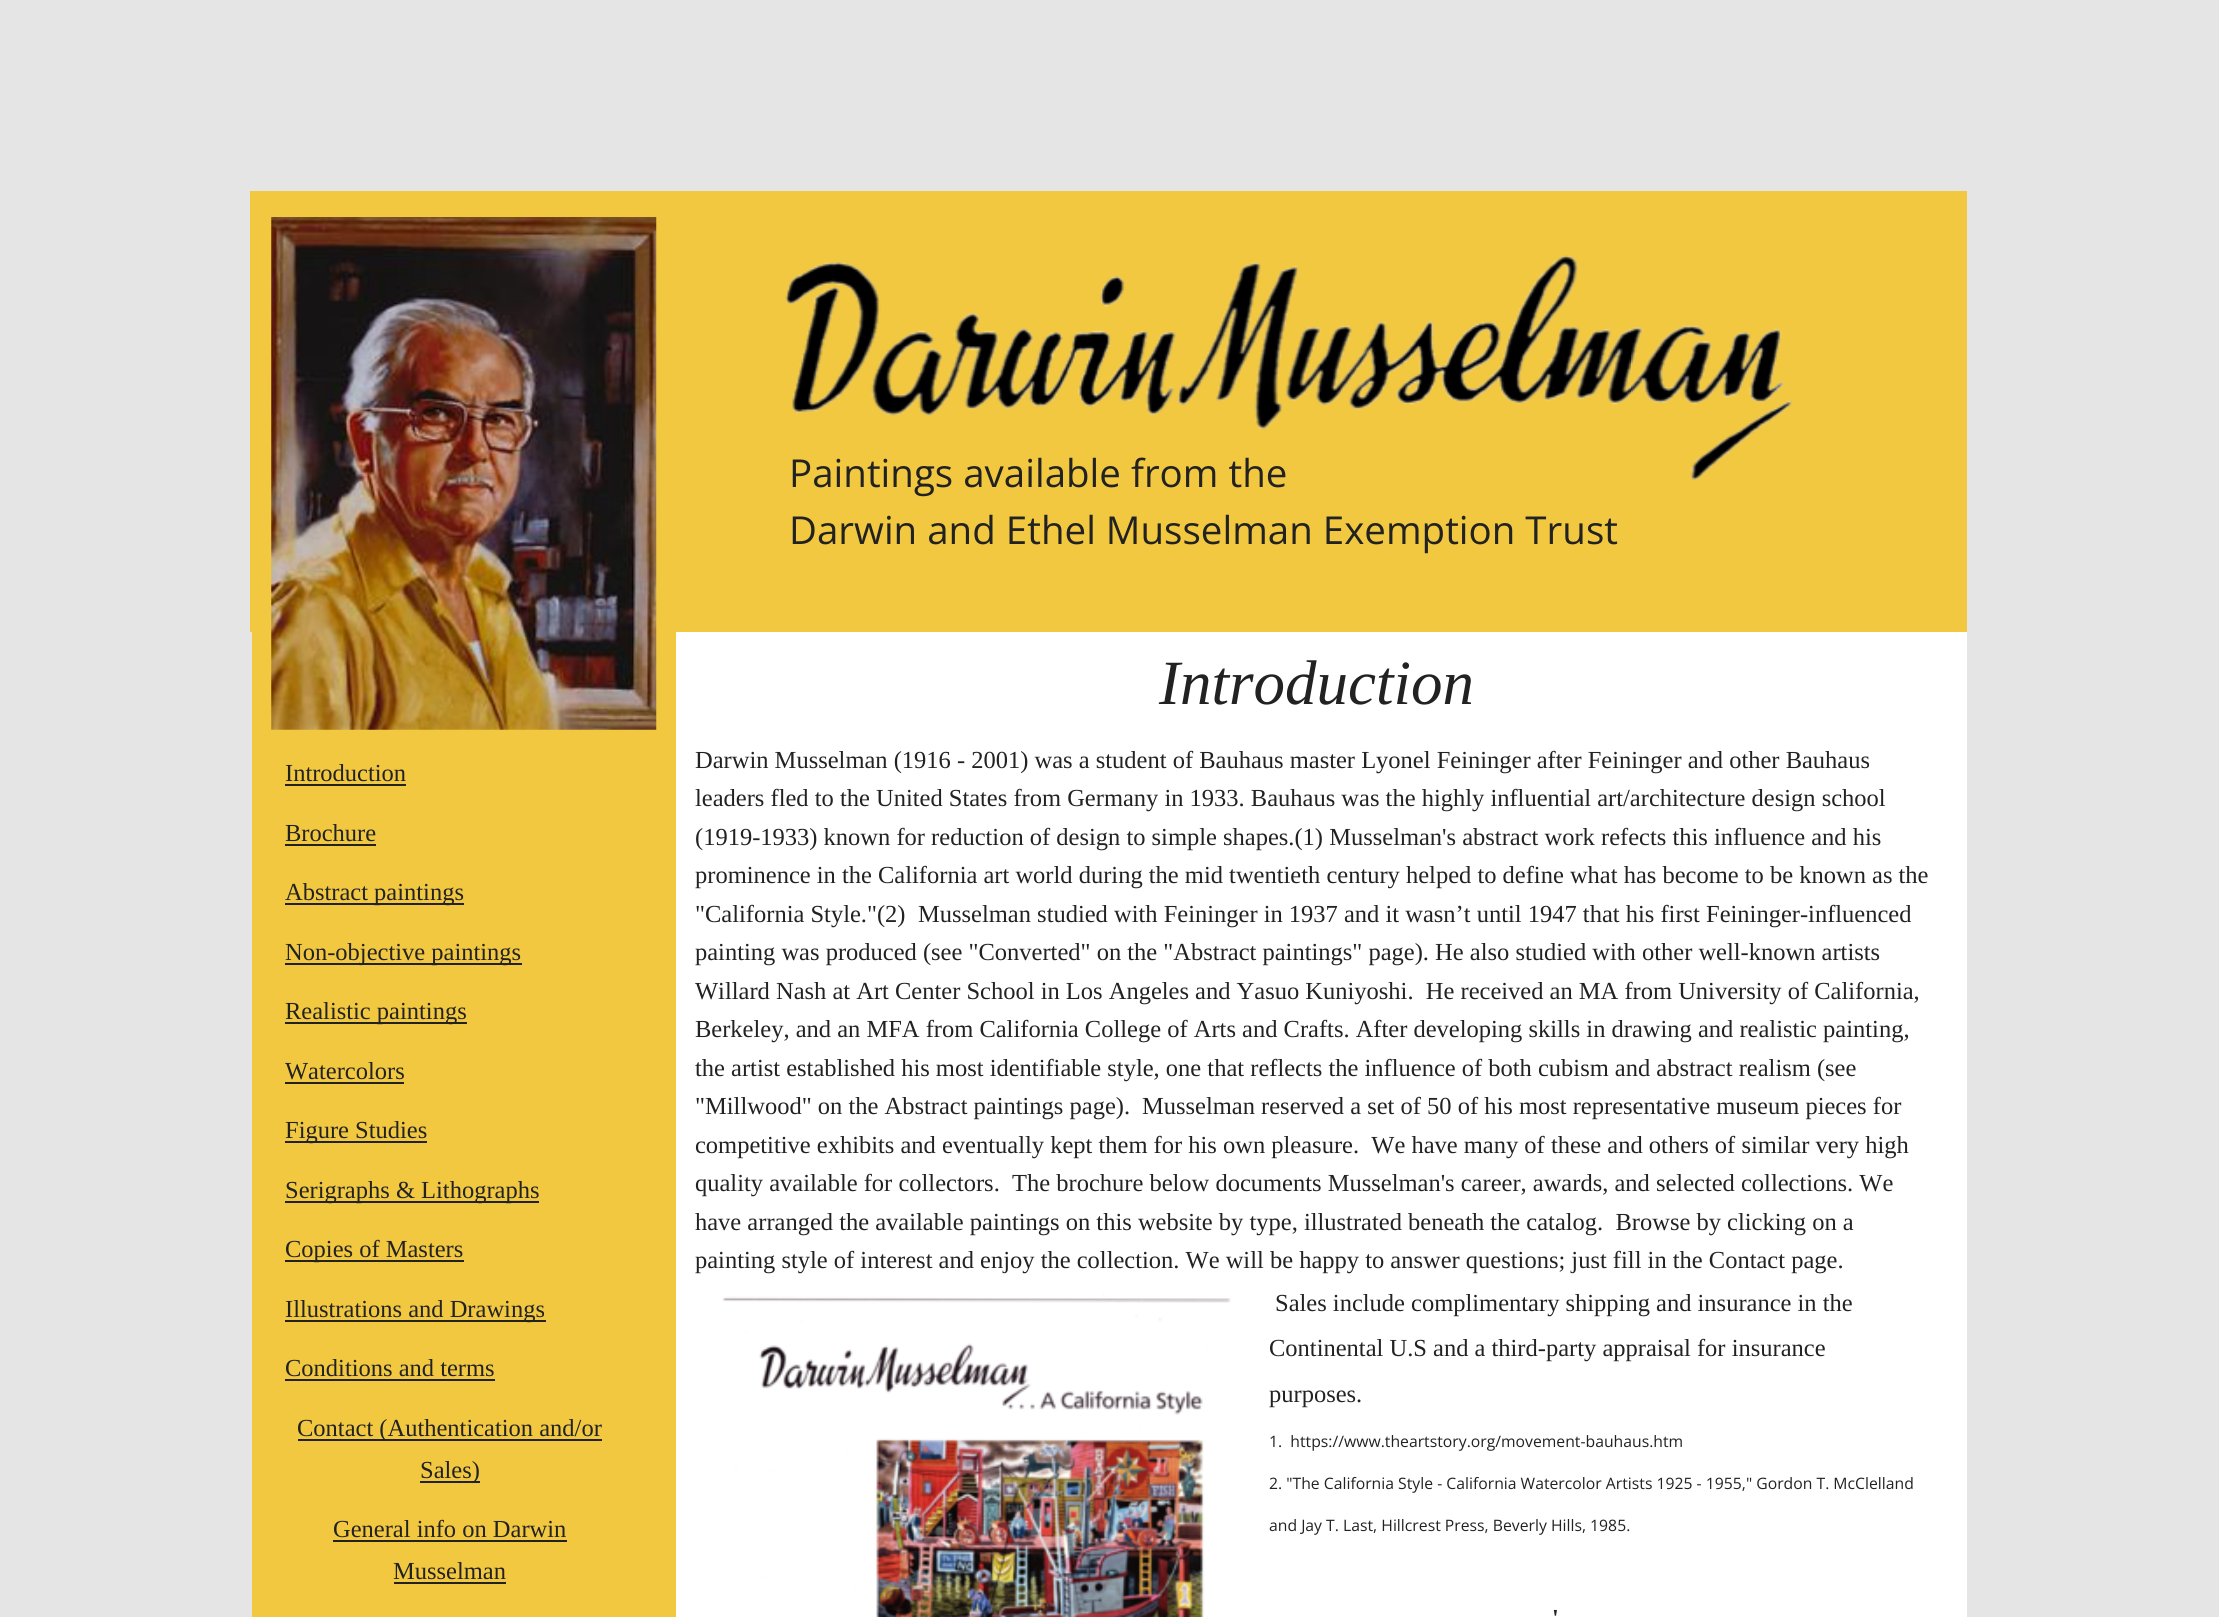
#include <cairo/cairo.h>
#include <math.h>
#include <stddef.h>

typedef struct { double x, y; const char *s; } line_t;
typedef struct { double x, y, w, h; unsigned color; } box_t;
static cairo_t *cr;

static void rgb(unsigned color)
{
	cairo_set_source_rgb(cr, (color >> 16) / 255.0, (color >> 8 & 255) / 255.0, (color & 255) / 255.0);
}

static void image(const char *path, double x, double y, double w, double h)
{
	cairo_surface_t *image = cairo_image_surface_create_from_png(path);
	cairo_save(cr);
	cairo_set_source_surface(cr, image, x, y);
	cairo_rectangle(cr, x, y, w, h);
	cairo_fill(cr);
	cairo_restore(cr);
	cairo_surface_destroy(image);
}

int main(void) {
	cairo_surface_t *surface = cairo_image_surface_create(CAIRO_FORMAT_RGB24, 2219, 1617);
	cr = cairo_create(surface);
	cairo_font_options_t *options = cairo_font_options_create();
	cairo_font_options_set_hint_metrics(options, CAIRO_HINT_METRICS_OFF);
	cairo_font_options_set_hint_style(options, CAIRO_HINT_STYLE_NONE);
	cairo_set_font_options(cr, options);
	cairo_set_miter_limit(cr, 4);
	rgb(0xe5e5e5);
	cairo_paint(cr);
	{
		static const box_t items[] = {
			{676, 632, 1291, 985, 0xffffff},
			{250, 191, 1717, 441, 0xf2c841},
			{252, 632, 424, 985, 0xf2c841},
		};
		for (size_t i = 0; i < sizeof items / sizeof *items; i++) {
			rgb(items[i].color);
			cairo_rectangle(cr, items[i].x, items[i].y, items[i].w, items[i].h);
			cairo_fill(cr);
		}
	}
	image("img/1.png", 271, 217, 386, 513);
	image("img/2.png", 785, 255, 1008, 225);
	{
		static const box_t items[] = {
			{285, 784, 121, 2, 0x222222},
			{285, 844, 91, 2, 0x222222},
			{285, 903, 179, 2, 0x222222},
			{285, 963, 237, 2, 0x222222},
			{285, 1022, 182, 2, 0x222222},
			{285, 1082, 119, 2, 0x222222},
			{285, 1141, 142, 2, 0x222222},
			{285, 1201, 254, 2, 0x222222},
			{285, 1260, 179, 2, 0x222222},
			{285, 1320, 261, 2, 0x222222},
			{285, 1379, 210, 2, 0x222222},
			{298, 1439, 304, 2, 0x222222},
			{420, 1481, 60, 2, 0x222222},
			{333, 1540, 234, 2, 0x222222},
			{394, 1582, 112, 2, 0x222222},
		};
		for (size_t i = 0; i < sizeof items / sizeof *items; i++) {
			rgb(items[i].color);
			cairo_rectangle(cr, items[i].x, items[i].y, items[i].w, items[i].h);
			cairo_fill(cr);
		}
	}
	image("img/3.png", 722, 1294, 509, 323);
	cairo_select_font_face(cr, "Open Sans", CAIRO_FONT_SLANT_NORMAL, CAIRO_FONT_WEIGHT_NORMAL);
	cairo_set_font_size(cr, 38.5);
	cairo_move_to(cr, 789, 487);
	cairo_show_text(cr, "Paintings available from the");
	cairo_move_to(cr, 789, 544);
	cairo_show_text(cr, "Darwin and Ethel Musselman Exemption Trust");
	cairo_select_font_face(cr, "Liberation Serif", CAIRO_FONT_SLANT_ITALIC, CAIRO_FONT_WEIGHT_NORMAL);
	cairo_set_font_size(cr, 63);
	cairo_move_to(cr, 1159, 704);
	cairo_show_text(cr, "Introduction");
	cairo_select_font_face(cr, "Liberation Serif", CAIRO_FONT_SLANT_NORMAL, CAIRO_FONT_WEIGHT_NORMAL);
	cairo_set_font_size(cr, 24.5);
	{
		static const line_t items[] = {
			{695, 768, "Darwin Musselman (1916 - 2001) was a student of Bauhaus master Lyonel Feininger after Feininger and other Bauhaus"},
			{695, 806, "leaders fled to the United States from Germany in 1933. Bauhaus was the highly influential art/architecture design school"},
			{695, 845, "(1919-1933) known for reduction of design to simple shapes.(1) Musselman's abstract work refects this influence and his"},
			{695, 883, "prominence in the California art world during the mid twentieth century helped to define what has become to be known as the"},
			{695, 922, "\"California Style.\"(2)"},
			{918, 922, "Musselman studied with Feininger in 1937 and it wasn’t until 1947 that his first Feininger-influenced"},
			{695, 960, "painting was produced (see \"Converted\" on the \"Abstract paintings\" page). He also studied with other well-known artists"},
			{695, 999, "Willard Nash at Art Center School in Los Angeles and Yasuo Kuniyoshi.  He received an MA from University of California,"},
			{695, 1037, "Berkeley, and an MFA from California College of Arts and Crafts. After developing skills in drawing and realistic painting,"},
			{695, 1076, "the artist established his most identifiable style, one that reflects the influence of both cubism and abstract realism (see"},
			{695, 1114, "\"Millwood\" on the Abstract paintings page)."},
			{1142, 1114, "Musselman reserved a set of 50 of his most representative museum pieces for"},
			{695, 1153, "competitive exhibits and eventually kept them for his own pleasure.  We have many of these and others of similar very high"},
			{695, 1191, "quality available for collectors.  The brochure below documents Musselman's career, awards, and selected collections. We"},
			{695, 1230, "have arranged the available paintings on this website by type, illustrated beneath the catalog.  Browse by clicking on a"},
			{695, 1268, "painting style of interest and enjoy the collection. We will be happy to answer questions; just fill in the Contact page."},
			{285, 781, "Introduction"},
			{285, 841, "Brochure"},
			{285, 900, "Abstract paintings"},
			{285, 960, "Non-objective paintings"},
			{285, 1019, "Realistic paintings"},
			{285, 1079, "Watercolors"},
			{285, 1138, "Figure Studies"},
			{285, 1198, "Serigraphs & Lithographs"},
			{285, 1257, "Copies of Masters"},
			{285, 1317, "Illustrations and Drawings"},
			{285, 1376, "Conditions and terms"},
			{297, 1436, "Contact (Authentication and/or"},
			{420, 1478, "Sales)"},
			{333, 1537, "General info on Darwin"},
			{393, 1579, "Musselman"},
			{1275, 1311, "Sales include complimentary shipping and insurance in the"},
			{1269, 1356, "Continental U.S and a third-party appraisal for insurance"},
			{1269, 1402, "purposes."},
		};
		for (size_t i = 0; i < sizeof items / sizeof *items; i++) {
			cairo_move_to(cr, items[i].x, items[i].y);
			cairo_show_text(cr, items[i].s);
		}
	}
	cairo_select_font_face(cr, "Open Sans", CAIRO_FONT_SLANT_NORMAL, CAIRO_FONT_WEIGHT_NORMAL);
	cairo_set_font_size(cr, 15.75);
	{
		static const line_t items[] = {
			{1269, 1447, "1.  https://www.theartstory.org/movement-bauhaus.htm"},
			{1269, 1489, "2. \"The California Style - California Watercolor Artists 1925 - 1955,\" Gordon T. McClelland"},
			{1269, 1531, "and Jay T. Last, Hillcrest Press, Beverly Hills, 1985."},
		};
		for (size_t i = 0; i < sizeof items / sizeof *items; i++) {
			cairo_move_to(cr, items[i].x, items[i].y);
			cairo_show_text(cr, items[i].s);
		}
	}
	cairo_select_font_face(cr, "Liberation Serif", CAIRO_FONT_SLANT_NORMAL, CAIRO_FONT_WEIGHT_BOLD);
	cairo_set_font_size(cr, 24.5);
	cairo_move_to(cr, 1552, 1626);
	cairo_show_text(cr, "'");
	cairo_surface_write_to_png(surface, "page.png");
	cairo_font_options_destroy(options);
	cairo_destroy(cr);
	cairo_surface_destroy(surface);
	return 0;
}
